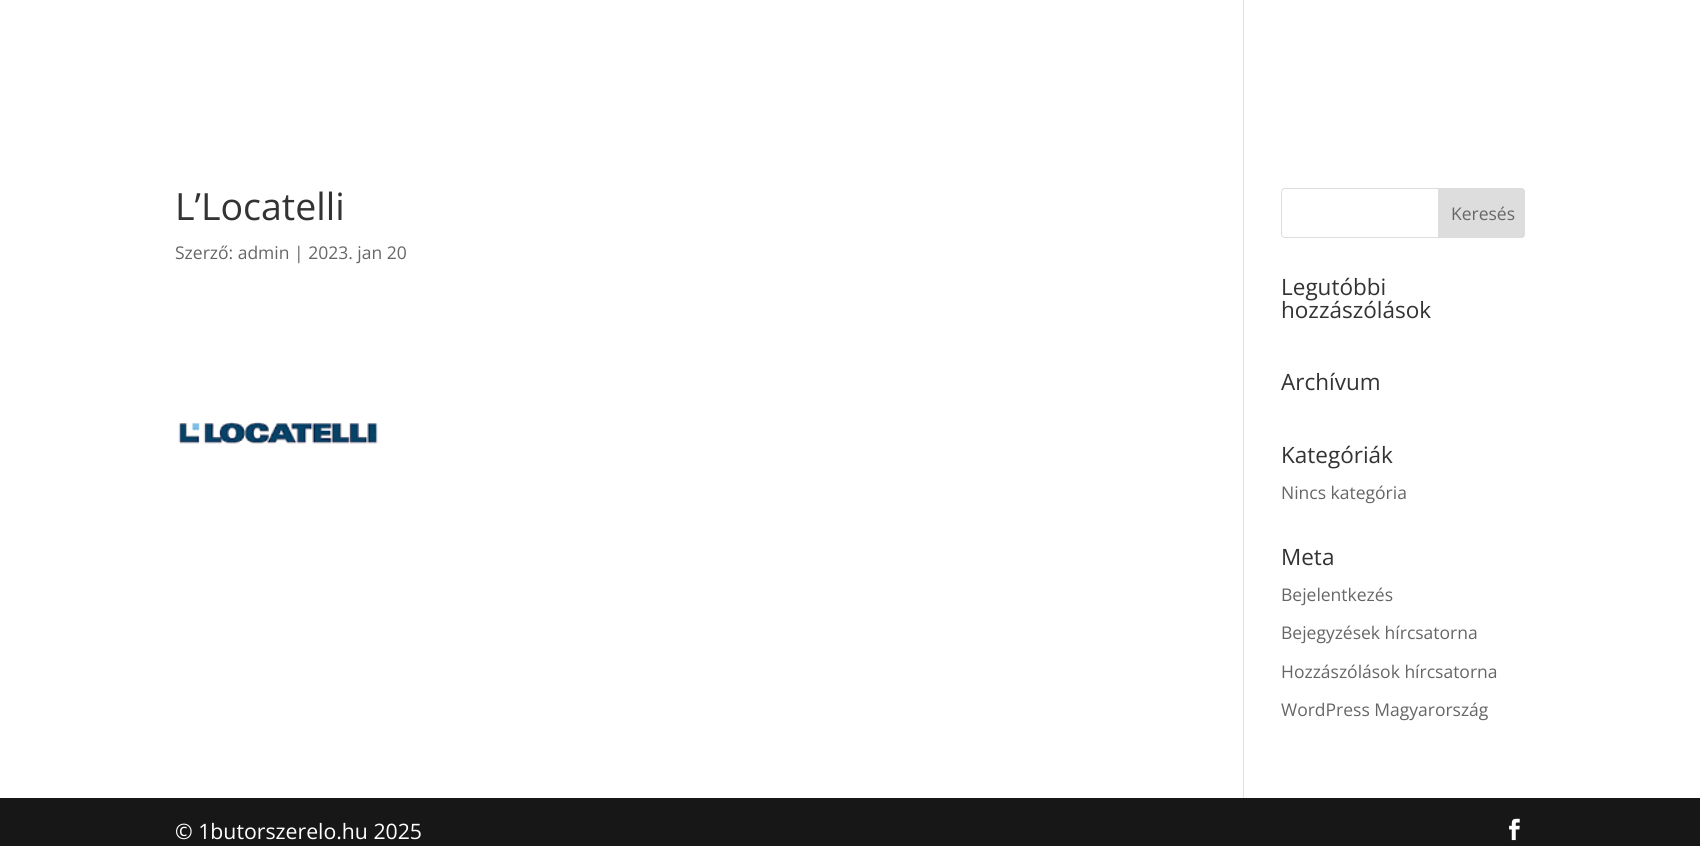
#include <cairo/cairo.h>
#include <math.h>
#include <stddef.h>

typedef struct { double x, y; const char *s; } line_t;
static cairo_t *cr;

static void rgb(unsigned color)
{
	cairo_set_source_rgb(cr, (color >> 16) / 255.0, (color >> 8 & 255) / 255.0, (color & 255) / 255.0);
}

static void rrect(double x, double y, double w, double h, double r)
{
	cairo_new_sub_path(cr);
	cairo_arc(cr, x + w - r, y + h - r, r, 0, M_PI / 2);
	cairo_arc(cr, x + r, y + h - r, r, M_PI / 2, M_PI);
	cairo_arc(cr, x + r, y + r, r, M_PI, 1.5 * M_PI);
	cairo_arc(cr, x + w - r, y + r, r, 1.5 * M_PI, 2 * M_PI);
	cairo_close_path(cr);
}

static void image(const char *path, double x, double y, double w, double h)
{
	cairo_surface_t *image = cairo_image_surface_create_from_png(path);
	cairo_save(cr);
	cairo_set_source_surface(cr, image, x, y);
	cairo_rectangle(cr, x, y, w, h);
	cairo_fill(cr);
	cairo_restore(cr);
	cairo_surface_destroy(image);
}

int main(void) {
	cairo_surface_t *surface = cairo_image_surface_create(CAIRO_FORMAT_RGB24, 1700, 846);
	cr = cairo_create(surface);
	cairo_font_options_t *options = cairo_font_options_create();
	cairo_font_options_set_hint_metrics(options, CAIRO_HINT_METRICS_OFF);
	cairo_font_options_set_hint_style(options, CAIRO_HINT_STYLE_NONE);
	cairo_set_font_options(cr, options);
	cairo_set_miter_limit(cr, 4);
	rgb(0xffffff);
	cairo_paint(cr);
	rgb(0xe2e2e2);
	cairo_rectangle(cr, 1243, 0, 1, 798);
	cairo_fill(cr);
	image("img/1.png", 178, 422, 200, 22);
	rrect(1281.5, 188.5, 243, 49, 3.5);
	rgb(0xdddddd);
	cairo_set_line_width(cr, 1);
	cairo_stroke(cr);
	cairo_new_path(cr);
	cairo_move_to(cr, 1438.5, 188.5);
	cairo_line_to(cr, 1521, 188.5);
	cairo_curve_to(cr, 1523, 188.5, 1524.5, 190, 1524.5, 192);
	cairo_line_to(cr, 1524.5, 234);
	cairo_curve_to(cr, 1524.5, 236, 1523, 237.5, 1521, 237.5);
	cairo_line_to(cr, 1438.5, 237.5);
	cairo_close_path(cr);
	cairo_fill_preserve(cr);
	cairo_stroke(cr);
	rgb(0x171717);
	cairo_rectangle(cr, 0, 798, 1700, 48);
	cairo_fill(cr);
	image("img/2.png", 1509, 818, 11, 23);
	cairo_select_font_face(cr, "Open Sans", CAIRO_FONT_SLANT_NORMAL, CAIRO_FONT_WEIGHT_NORMAL);
	cairo_set_font_size(cr, 37.5);
	rgb(0x333333);
	cairo_move_to(cr, 175, 220);
	cairo_show_text(cr, "L’Locatelli");
	cairo_set_font_size(cr, 17.5);
	rgb(0x666666);
	cairo_move_to(cr, 175, 259);
	cairo_show_text(cr, "Szerző: admin | 2023. jan 20");
	cairo_move_to(cr, 1451, 220);
	cairo_show_text(cr, "Keresés");
	cairo_set_font_size(cr, 22.5);
	rgb(0x333333);
	{
		static const line_t items[] = {
			{1281, 295, "Legutóbbi"},
			{1281, 318, "hozzászólások"},
			{1281, 390, "Archívum"},
			{1281, 463, "Kategóriák"},
		};
		for (size_t i = 0; i < sizeof items / sizeof *items; i++) {
			cairo_move_to(cr, items[i].x, items[i].y);
			cairo_show_text(cr, items[i].s);
		}
	}
	cairo_set_font_size(cr, 17.5);
	rgb(0x666666);
	cairo_move_to(cr, 1281, 499);
	cairo_show_text(cr, "Nincs kategória");
	cairo_set_font_size(cr, 22.5);
	rgb(0x333333);
	cairo_move_to(cr, 1281, 565);
	cairo_show_text(cr, "Meta");
	cairo_set_font_size(cr, 17.5);
	rgb(0x666666);
	{
		static const line_t items[] = {
			{1281, 601, "Bejelentkezés"},
			{1281, 639, "Bejegyzések hírcsatorna"},
			{1281, 678, "Hozzászólások hírcsatorna"},
			{1281, 716, "WordPress Magyarország"},
		};
		for (size_t i = 0; i < sizeof items / sizeof *items; i++) {
			cairo_move_to(cr, items[i].x, items[i].y);
			cairo_show_text(cr, items[i].s);
		}
	}
	cairo_set_font_size(cr, 21.25);
	rgb(0xffffff);
	cairo_move_to(cr, 175, 839);
	cairo_show_text(cr, "© 1butorszerelo.hu 2025");
	cairo_surface_write_to_png(surface, "page.png");
	cairo_font_options_destroy(options);
	cairo_destroy(cr);
	cairo_surface_destroy(surface);
	return 0;
}
